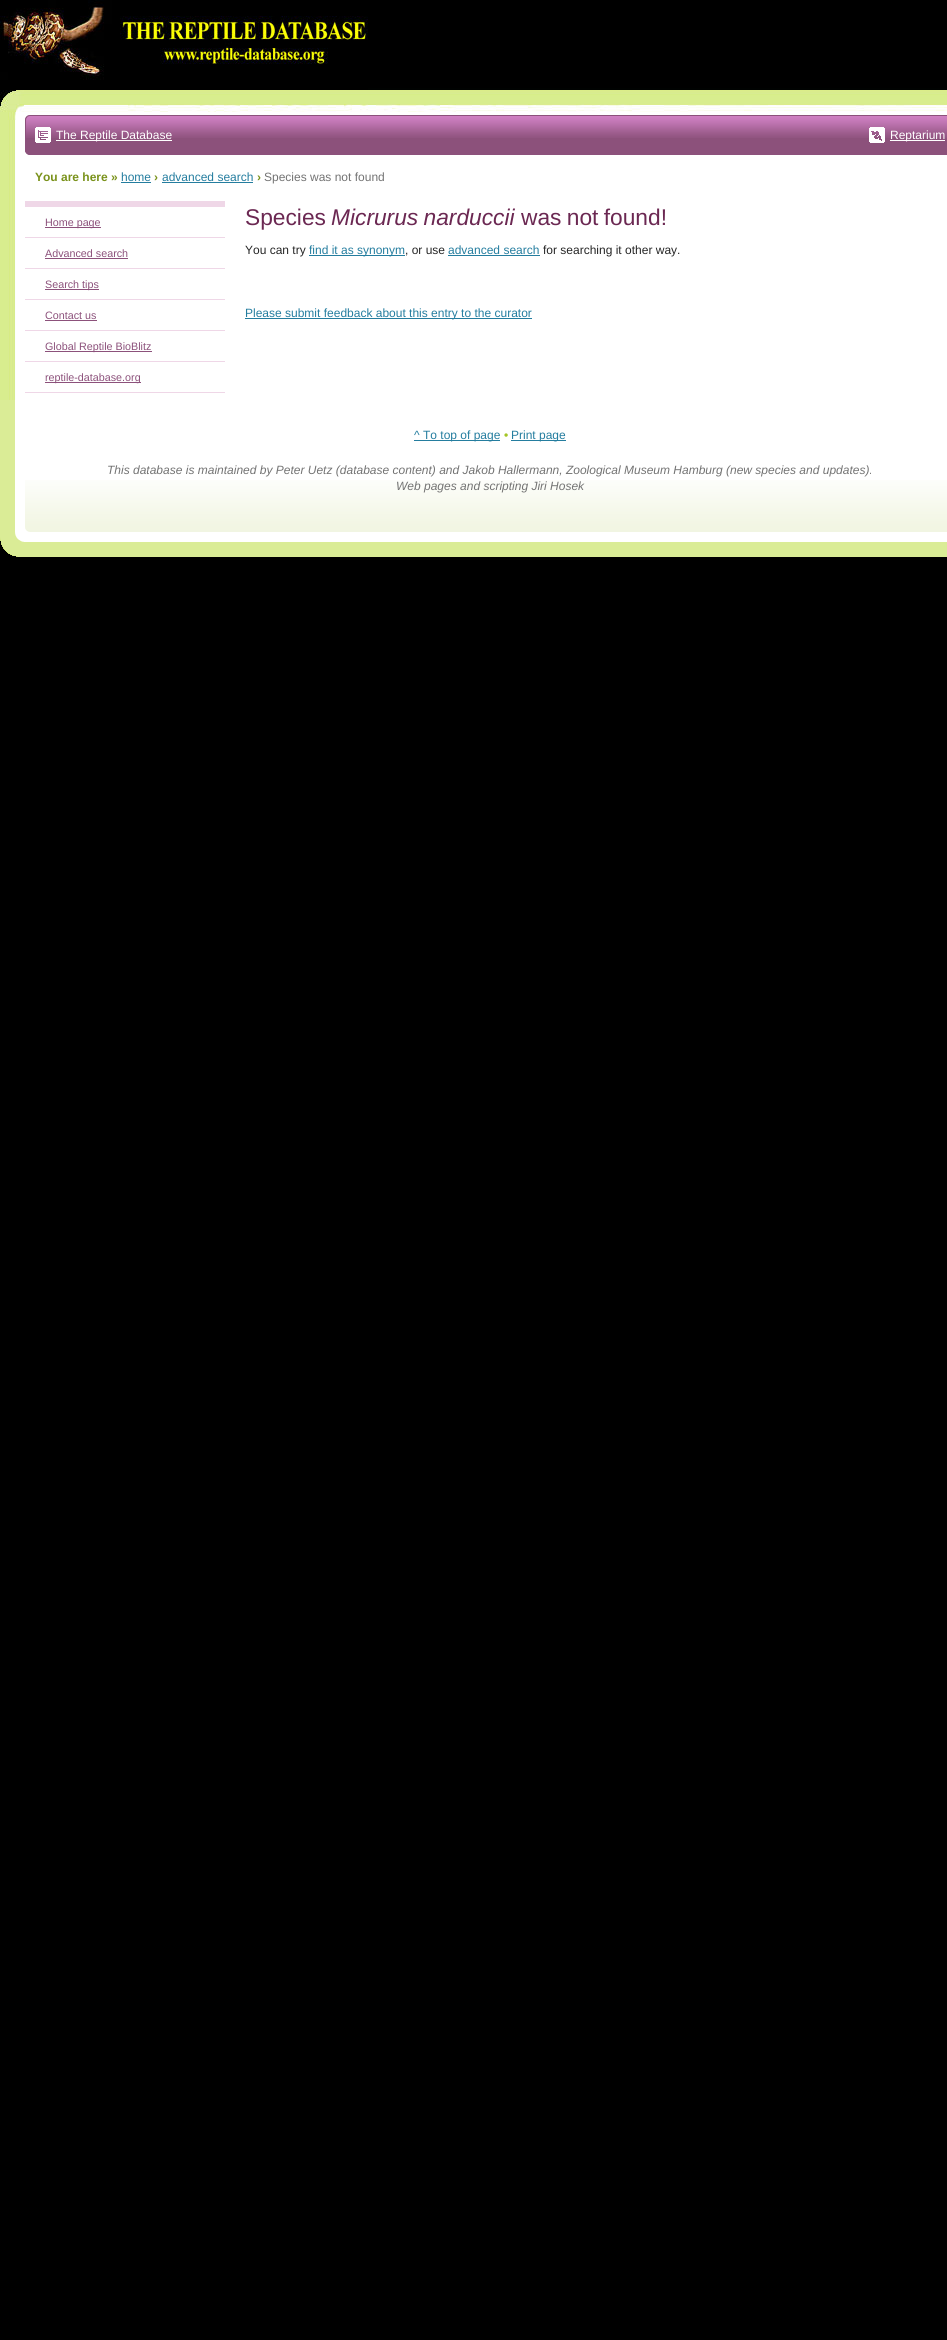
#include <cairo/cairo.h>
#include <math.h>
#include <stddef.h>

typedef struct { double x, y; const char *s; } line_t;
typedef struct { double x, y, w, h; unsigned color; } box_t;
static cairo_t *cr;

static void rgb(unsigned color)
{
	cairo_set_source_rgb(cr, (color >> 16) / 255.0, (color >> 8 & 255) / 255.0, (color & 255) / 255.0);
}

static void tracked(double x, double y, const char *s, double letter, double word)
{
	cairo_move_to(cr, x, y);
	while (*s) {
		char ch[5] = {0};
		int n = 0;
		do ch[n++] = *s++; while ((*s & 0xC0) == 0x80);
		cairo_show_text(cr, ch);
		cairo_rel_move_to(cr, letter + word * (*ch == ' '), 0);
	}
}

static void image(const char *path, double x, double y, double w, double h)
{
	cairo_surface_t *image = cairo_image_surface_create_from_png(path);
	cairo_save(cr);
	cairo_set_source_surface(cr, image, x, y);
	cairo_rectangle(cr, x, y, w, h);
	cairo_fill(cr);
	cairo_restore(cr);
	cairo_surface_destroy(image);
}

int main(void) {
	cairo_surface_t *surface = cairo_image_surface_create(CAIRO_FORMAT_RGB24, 947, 2340);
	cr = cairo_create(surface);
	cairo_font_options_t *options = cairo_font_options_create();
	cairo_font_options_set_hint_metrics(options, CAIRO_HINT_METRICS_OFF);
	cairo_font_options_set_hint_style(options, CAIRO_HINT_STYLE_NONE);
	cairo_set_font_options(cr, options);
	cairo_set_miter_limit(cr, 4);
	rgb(0x000000);
	cairo_paint(cr);
	rgb(0xffffff);
	cairo_rectangle(cr, 15, 400, 932, 80);
	cairo_fill(cr);
	rgb(0xdaec96);
	cairo_rectangle(cr, 0, 400, 15, 80);
	cairo_fill(cr);
	image("img/1.png", 0, 0, 947, 400);
	image("img/2.png", 0, 0, 368, 90);
	image("img/3.png", 0, 480, 947, 77);
	rgb(0x8c517b);
	cairo_rectangle(cr, 25, 138, 922, 17);
	cairo_fill(cr);
	image("img/4.png", 25, 115, 922, 23);
	image("img/5.png", 35, 127, 16, 16);
	rgb(0xffffff);
	cairo_rectangle(cr, 56, 140, 116, 1);
	cairo_fill(cr);
	image("img/6.png", 869, 127, 16, 16);
	cairo_rectangle(cr, 890, 140, 55, 1);
	cairo_fill(cr);
	image("img/7.png", 25, 151, 4, 4);
	{
		static const box_t items[] = {
			{121, 182, 30, 1, 0x247d9f},
			{162, 182, 91, 1, 0x247d9f},
			{25, 201, 200, 6, 0xefd7e7},
			{25, 392, 200, 1, 0xefd7e7},
			{45, 227, 56, 1, 0x8c517b},
			{25, 237, 200, 1, 0xefd7e7},
			{45, 258, 83, 1, 0x8c517b},
			{25, 268, 200, 1, 0xefd7e7},
			{45, 289, 54, 1, 0x8c517b},
			{25, 299, 200, 1, 0xefd7e7},
			{45, 320, 52, 1, 0x8c517b},
			{25, 330, 200, 1, 0xefd7e7},
			{45, 351, 107, 1, 0x8c517b},
			{25, 361, 200, 1, 0xefd7e7},
			{45, 382, 96, 1, 0x8c517b},
			{309, 255, 96, 1, 0x247d9f},
			{448, 255, 92, 1, 0x247d9f},
			{245, 318, 287, 1, 0x247d9f},
			{414, 440, 86, 1, 0x247d9f},
			{511, 440, 55, 1, 0x247d9f},
		};
		for (size_t i = 0; i < sizeof items / sizeof *items; i++) {
			rgb(items[i].color);
			cairo_rectangle(cr, items[i].x, items[i].y, items[i].w, items[i].h);
			cairo_fill(cr);
		}
	}
	cairo_select_font_face(cr, "Liberation Sans", CAIRO_FONT_SLANT_NORMAL, CAIRO_FONT_WEIGHT_NORMAL);
	cairo_set_font_size(cr, 12);
	rgb(0xffffff);
	cairo_move_to(cr, 56, 139);
	cairo_show_text(cr, "The Reptile Database");
	cairo_move_to(cr, 890, 139);
	cairo_show_text(cr, "Reptarium");
	cairo_select_font_face(cr, "Liberation Sans", CAIRO_FONT_SLANT_NORMAL, CAIRO_FONT_WEIGHT_BOLD);
	rgb(0x7a921b);
	cairo_move_to(cr, 35, 181);
	cairo_show_text(cr, "You are here »");
	cairo_select_font_face(cr, "Liberation Sans", CAIRO_FONT_SLANT_NORMAL, CAIRO_FONT_WEIGHT_NORMAL);
	rgb(0x247d9f);
	cairo_move_to(cr, 121, 181);
	cairo_show_text(cr, "home");
	cairo_select_font_face(cr, "Liberation Sans", CAIRO_FONT_SLANT_NORMAL, CAIRO_FONT_WEIGHT_BOLD);
	rgb(0x7a921b);
	cairo_move_to(cr, 154, 181);
	cairo_show_text(cr, "›");
	cairo_select_font_face(cr, "Liberation Sans", CAIRO_FONT_SLANT_NORMAL, CAIRO_FONT_WEIGHT_NORMAL);
	rgb(0x247d9f);
	cairo_move_to(cr, 162, 181);
	cairo_show_text(cr, "advanced search");
	cairo_select_font_face(cr, "Liberation Sans", CAIRO_FONT_SLANT_NORMAL, CAIRO_FONT_WEIGHT_BOLD);
	rgb(0x7a921b);
	cairo_move_to(cr, 257, 181);
	cairo_show_text(cr, "›");
	cairo_select_font_face(cr, "Liberation Sans", CAIRO_FONT_SLANT_NORMAL, CAIRO_FONT_WEIGHT_NORMAL);
	rgb(0x737373);
	cairo_move_to(cr, 264, 181);
	cairo_show_text(cr, "Species was not found");
	cairo_set_font_size(cr, 10.75);
	rgb(0x8c517b);
	{
		static const line_t items[] = {
			{45, 226, "Home page"},
			{45, 257, "Advanced search"},
			{45, 288, "Search tips"},
			{45, 319, "Contact us"},
			{45, 350, "Global Reptile BioBlitz"},
			{45, 381, "reptile-database.org"},
		};
		for (size_t i = 0; i < sizeof items / sizeof *items; i++) {
			cairo_move_to(cr, items[i].x, items[i].y);
			cairo_show_text(cr, items[i].s);
		}
	}
	cairo_set_font_size(cr, 22.75);
	rgb(0x6b2852);
	cairo_move_to(cr, 245, 225);
	cairo_show_text(cr, "Species");
	cairo_select_font_face(cr, "Liberation Sans", CAIRO_FONT_SLANT_ITALIC, CAIRO_FONT_WEIGHT_NORMAL);
	tracked(331, 225, "Micrurus narduccii", 0, -1);
	cairo_select_font_face(cr, "Liberation Sans", CAIRO_FONT_SLANT_NORMAL, CAIRO_FONT_WEIGHT_NORMAL);
	tracked(521, 225, "was not found!", 0, -1);
	cairo_set_font_size(cr, 12);
	rgb(0x262626);
	cairo_move_to(cr, 245, 254);
	cairo_show_text(cr, "You can try");
	rgb(0x247d9f);
	cairo_move_to(cr, 309, 254);
	cairo_show_text(cr, "find it as synonym");
	rgb(0x262626);
	cairo_move_to(cr, 405, 254);
	cairo_show_text(cr, ", or use");
	rgb(0x247d9f);
	cairo_move_to(cr, 448, 254);
	cairo_show_text(cr, "advanced search");
	rgb(0x262626);
	cairo_move_to(cr, 543, 254);
	cairo_show_text(cr, "for searching it other way.");
	rgb(0x247d9f);
	cairo_move_to(cr, 245, 317);
	cairo_show_text(cr, "Please submit feedback about this entry to the curator");
	cairo_move_to(cr, 414, 439);
	cairo_show_text(cr, "^ To top of page");
	cairo_select_font_face(cr, "Liberation Sans", CAIRO_FONT_SLANT_NORMAL, CAIRO_FONT_WEIGHT_BOLD);
	rgb(0xa4c524);
	cairo_move_to(cr, 504, 439);
	cairo_show_text(cr, "•");
	cairo_select_font_face(cr, "Liberation Sans", CAIRO_FONT_SLANT_NORMAL, CAIRO_FONT_WEIGHT_NORMAL);
	rgb(0x247d9f);
	cairo_move_to(cr, 511, 439);
	cairo_show_text(cr, "Print page");
	cairo_select_font_face(cr, "Liberation Sans", CAIRO_FONT_SLANT_ITALIC, CAIRO_FONT_WEIGHT_NORMAL);
	rgb(0x737373);
	cairo_move_to(cr, 107, 474);
	cairo_show_text(cr, "This database is maintained by Peter Uetz (database content) and Jakob Hallermann, Zoological Museum Hamburg (new species and updates).");
	cairo_move_to(cr, 396, 490);
	cairo_show_text(cr, "Web pages and scripting Jiri Hosek");
	cairo_surface_write_to_png(surface, "page.png");
	cairo_font_options_destroy(options);
	cairo_destroy(cr);
	cairo_surface_destroy(surface);
	return 0;
}
